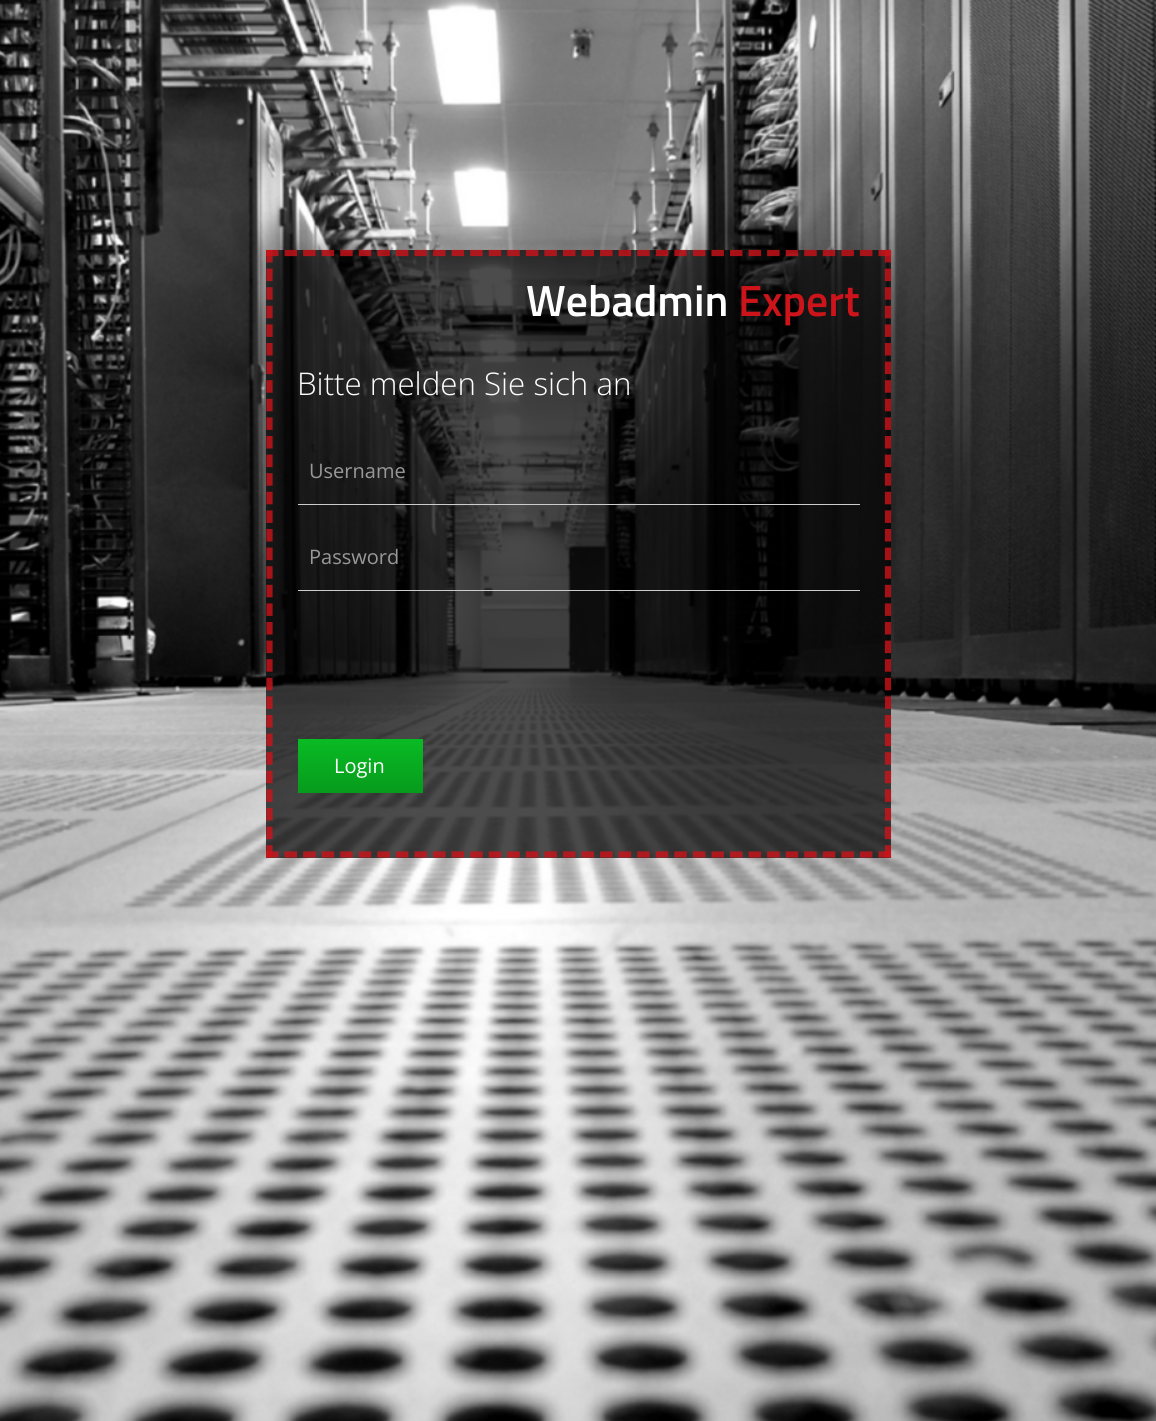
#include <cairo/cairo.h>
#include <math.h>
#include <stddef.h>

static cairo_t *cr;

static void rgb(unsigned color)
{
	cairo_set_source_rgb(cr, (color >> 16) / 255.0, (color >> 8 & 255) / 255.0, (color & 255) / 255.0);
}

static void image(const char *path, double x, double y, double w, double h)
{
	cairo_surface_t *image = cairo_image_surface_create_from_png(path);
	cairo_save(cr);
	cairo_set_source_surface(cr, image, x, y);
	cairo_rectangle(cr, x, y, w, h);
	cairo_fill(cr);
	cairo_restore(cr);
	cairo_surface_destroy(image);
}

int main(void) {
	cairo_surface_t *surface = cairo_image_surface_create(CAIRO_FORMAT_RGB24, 1156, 1421);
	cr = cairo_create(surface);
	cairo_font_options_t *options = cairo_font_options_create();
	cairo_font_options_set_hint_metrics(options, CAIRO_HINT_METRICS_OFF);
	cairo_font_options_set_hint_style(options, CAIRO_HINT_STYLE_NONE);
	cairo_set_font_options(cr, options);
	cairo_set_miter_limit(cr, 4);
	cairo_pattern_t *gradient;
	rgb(0xffffff);
	cairo_paint(cr);
	image("img/1.png", 0, 0, 1156, 1421);
	cairo_set_source_rgba(cr, 0, 0, 0, 0.7);
	cairo_rectangle(cr, 266, 250, 625, 608);
	cairo_fill(cr);
	cairo_new_path(cr);
	cairo_move_to(cr, 266, 253);
	cairo_line_to(cr, 891, 253);
	cairo_set_source_rgba(cr, 0.8, 0.078, 0.102, 0.8);
	cairo_set_line_width(cr, 6.2);
	cairo_set_dash(cr, (double[]){12.5, 6.06}, 2, 0);
	cairo_stroke(cr);
	cairo_new_path(cr);
	cairo_move_to(cr, 888, 250);
	cairo_line_to(cr, 888, 857.5);
	cairo_set_dash(cr, (double[]){12.5, 6.1}, 2, 0);
	cairo_stroke(cr);
	cairo_new_path(cr);
	cairo_move_to(cr, 266, 854.5);
	cairo_line_to(cr, 891, 854.5);
	cairo_set_dash(cr, (double[]){12.5, 6.06}, 2, 0);
	cairo_stroke(cr);
	cairo_new_path(cr);
	cairo_move_to(cr, 269.5, 250);
	cairo_line_to(cr, 269.5, 857.5);
	cairo_set_dash(cr, (double[]){12.5, 6.1}, 2, 0);
	cairo_stroke(cr);
	rgb(0xcccccc);
	cairo_rectangle(cr, 298, 504, 562, 1);
	cairo_fill(cr);
	cairo_rectangle(cr, 298, 590, 562, 1);
	cairo_fill(cr);
	gradient = cairo_pattern_create_linear(360, 739, 360, 793);
	cairo_pattern_add_color_stop_rgba(gradient, 0, 0.035, 0.733, 0.137, 1);
	cairo_pattern_add_color_stop_rgba(gradient, 1, 0.027, 0.608, 0.114, 1);
	cairo_set_source(cr, gradient);
	cairo_pattern_destroy(gradient);
	cairo_rectangle(cr, 298, 739, 125, 54);
	cairo_fill(cr);
	cairo_select_font_face(cr, "Titillium Web SemiBold", CAIRO_FONT_SLANT_NORMAL, CAIRO_FONT_WEIGHT_NORMAL);
	cairo_set_font_size(cr, 43.75);
	rgb(0xffffff);
	cairo_move_to(cr, 526, 316);
	cairo_show_text(cr, "Webadmin");
	rgb(0xcc141a);
	cairo_move_to(cr, 738, 316);
	cairo_show_text(cr, "Expert");
	cairo_select_font_face(cr, "Open Sans Light", CAIRO_FONT_SLANT_NORMAL, CAIRO_FONT_WEIGHT_NORMAL);
	cairo_set_font_size(cr, 31.25);
	rgb(0xffffff);
	cairo_move_to(cr, 297, 395);
	cairo_show_text(cr, "Bitte melden Sie sich an");
	cairo_select_font_face(cr, "Open Sans", CAIRO_FONT_SLANT_NORMAL, CAIRO_FONT_WEIGHT_NORMAL);
	cairo_set_font_size(cr, 20);
	rgb(0x999999);
	cairo_move_to(cr, 309, 478);
	cairo_show_text(cr, "Username");
	cairo_move_to(cr, 309, 564);
	cairo_show_text(cr, "Password");
	rgb(0xffffff);
	cairo_move_to(cr, 334, 773);
	cairo_show_text(cr, "Login");
	cairo_surface_write_to_png(surface, "page.png");
	cairo_font_options_destroy(options);
	cairo_destroy(cr);
	cairo_surface_destroy(surface);
	return 0;
}
